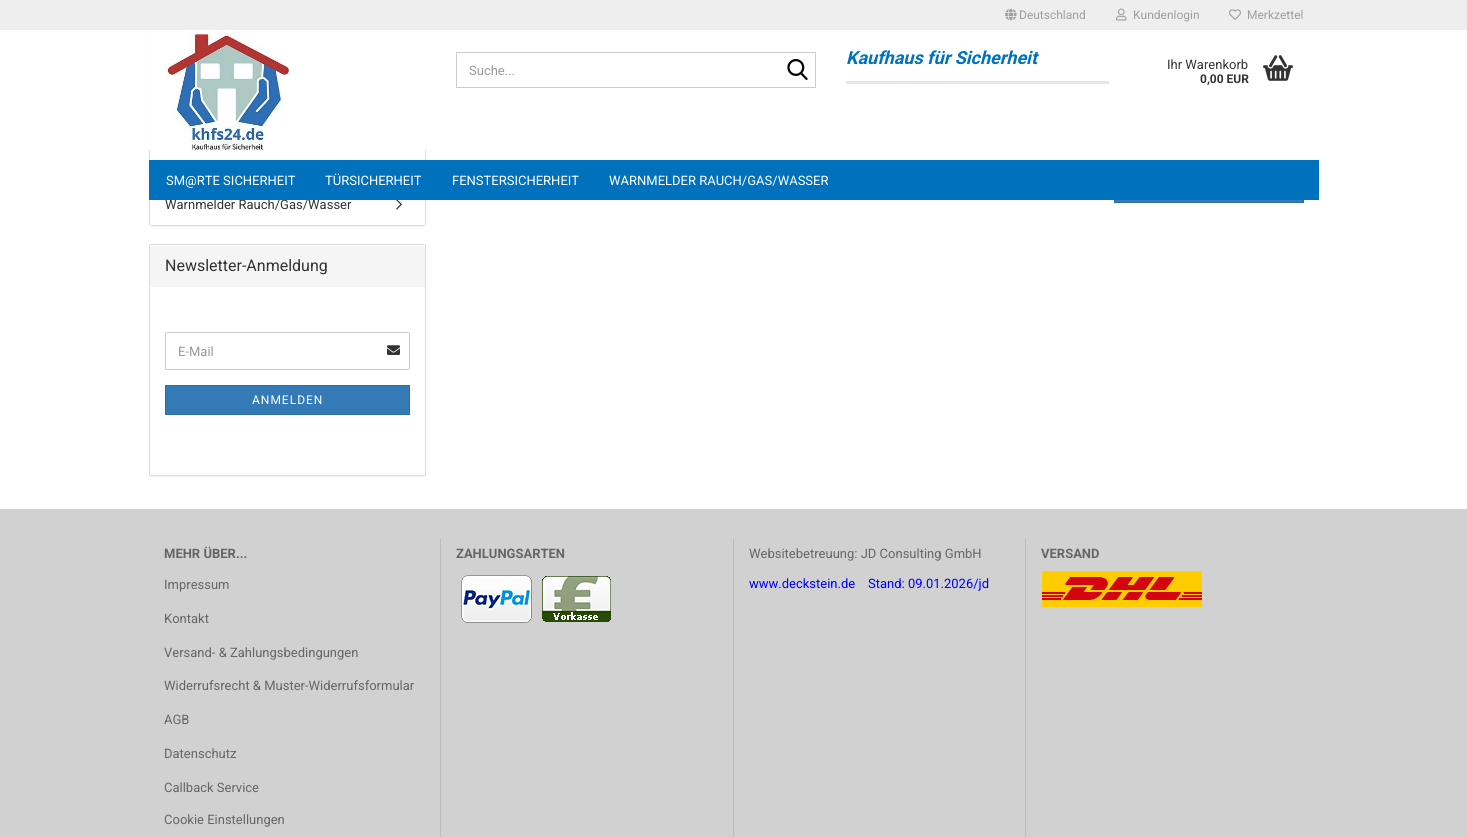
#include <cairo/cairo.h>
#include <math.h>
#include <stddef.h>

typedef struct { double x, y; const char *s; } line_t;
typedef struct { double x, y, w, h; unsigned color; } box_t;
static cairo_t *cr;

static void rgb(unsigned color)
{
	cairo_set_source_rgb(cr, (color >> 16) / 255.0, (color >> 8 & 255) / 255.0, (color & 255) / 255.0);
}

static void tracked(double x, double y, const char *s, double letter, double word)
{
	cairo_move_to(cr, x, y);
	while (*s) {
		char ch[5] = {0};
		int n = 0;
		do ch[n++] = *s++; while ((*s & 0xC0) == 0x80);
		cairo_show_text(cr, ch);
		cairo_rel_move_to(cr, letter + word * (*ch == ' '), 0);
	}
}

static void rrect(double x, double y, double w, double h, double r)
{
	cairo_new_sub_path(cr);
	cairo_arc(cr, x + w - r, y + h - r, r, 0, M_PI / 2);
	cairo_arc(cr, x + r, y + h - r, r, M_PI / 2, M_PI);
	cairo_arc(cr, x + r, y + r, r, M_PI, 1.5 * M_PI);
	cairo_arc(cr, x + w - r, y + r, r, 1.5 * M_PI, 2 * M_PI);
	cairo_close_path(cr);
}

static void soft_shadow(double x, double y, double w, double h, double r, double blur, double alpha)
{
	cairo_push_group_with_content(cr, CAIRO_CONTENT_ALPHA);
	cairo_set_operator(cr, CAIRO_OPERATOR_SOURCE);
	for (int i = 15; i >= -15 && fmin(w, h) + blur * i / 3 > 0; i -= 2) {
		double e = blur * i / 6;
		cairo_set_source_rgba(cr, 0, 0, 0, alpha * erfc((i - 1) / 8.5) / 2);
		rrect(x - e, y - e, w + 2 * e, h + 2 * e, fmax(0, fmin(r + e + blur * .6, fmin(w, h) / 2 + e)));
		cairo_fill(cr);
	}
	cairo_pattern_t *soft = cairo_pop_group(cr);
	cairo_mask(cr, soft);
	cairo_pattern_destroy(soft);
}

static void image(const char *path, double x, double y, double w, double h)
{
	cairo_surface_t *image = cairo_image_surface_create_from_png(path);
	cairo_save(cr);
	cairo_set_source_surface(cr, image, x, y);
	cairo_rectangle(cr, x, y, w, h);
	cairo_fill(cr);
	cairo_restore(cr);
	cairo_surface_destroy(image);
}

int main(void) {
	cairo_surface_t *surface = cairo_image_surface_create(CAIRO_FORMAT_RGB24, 1467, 837);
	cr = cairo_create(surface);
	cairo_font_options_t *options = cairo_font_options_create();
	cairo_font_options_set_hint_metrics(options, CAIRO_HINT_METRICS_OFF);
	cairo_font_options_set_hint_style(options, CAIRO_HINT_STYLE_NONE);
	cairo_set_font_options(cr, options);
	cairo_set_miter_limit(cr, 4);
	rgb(0xffffff);
	cairo_paint(cr);
	rgb(0x000000);
	soft_shadow(149, -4, 277, 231, 2, 0.5, 0.05);
	rgb(0xffffff);
	rrect(149, -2, 277, 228, 2);
	cairo_fill(cr);
	rgb(0xeeeeee);
	cairo_rectangle(cr, 0, 0, 1467, 30);
	cairo_fill(cr);
	image("img/1.png", 1005, 8, 12, 13);
	image("img/2.png", 1116, 8, 11, 13);
	image("img/3.png", 1229, 9, 12, 11);
	image("img/4.png", 164, 30, 125, 121);
	rgb(0xe7e7e7);
	cairo_rectangle(cr, 846, 81, 263, 3);
	cairo_fill(cr);
	cairo_rectangle(cr, 456.5, 52.5, 359, 35);
	rgb(0xcccccc);
	cairo_set_line_width(cr, 1);
	cairo_stroke(cr);
	image("img/5.png", 787, 59, 21, 21);
	image("img/6.png", 1263, 55, 30, 26);
	rgb(0x337ab7);
	cairo_rectangle(cr, 1115, 200, 188, 2);
	cairo_fill(cr);
	cairo_rectangle(cr, 1114.5, 164.5, 189, 38);
	rgb(0x2d6da3);
	cairo_stroke(cr);
	{
		static const box_t items[] = {
			{425, 150, 1, 75, 0xdddddd},
			{149, 150, 1, 75, 0xdddddd},
			{151, 225, 273, 1, 0xdddddd},
		};
		for (size_t i = 0; i < sizeof items / sizeof *items; i++) {
			rgb(items[i].color);
			cairo_rectangle(cr, items[i].x, items[i].y, items[i].w, items[i].h);
			cairo_fill(cr);
		}
	}
	image("img/7.png", 396, 200, 6, 10);
	rgb(0x000000);
	soft_shadow(149, 245, 277, 232, 2, 0.5, 0.05);
	rgb(0xffffff);
	rrect(149.5, 244.5, 276, 231, 1.5);
	cairo_fill_preserve(cr);
	rgb(0xdddddd);
	cairo_stroke(cr);
	rgb(0xf5f5f5);
	cairo_new_path(cr);
	cairo_move_to(cr, 151, 245);
	cairo_line_to(cr, 424, 245);
	cairo_curve_to(cr, 424.5, 245, 425, 245.5, 425, 246);
	cairo_line_to(cr, 425, 287);
	cairo_line_to(cr, 150, 287);
	cairo_line_to(cr, 150, 246);
	cairo_curve_to(cr, 150, 245.5, 150.5, 245, 151, 245);
	cairo_close_path(cr);
	cairo_fill(cr);
	rgb(0xffffff);
	cairo_new_path(cr);
	cairo_move_to(cr, 151, 246);
	cairo_line_to(cr, 424, 246);
	cairo_curve_to(cr, 425, 246, 425, 246, 425, 247);
	cairo_curve_to(cr, 425, 246, 425, 245, 424, 245);
	cairo_line_to(cr, 151, 245);
	cairo_line_to(cr, 150, 245);
	cairo_line_to(cr, 150, 247);
	cairo_close_path(cr);
	cairo_fill(cr);
	rrect(165.5, 332.5, 244, 37, 1.5);
	rgb(0xcccccc);
	cairo_stroke(cr);
	image("img/8.png", 387, 345, 13, 10);
	rgb(0x337ab7);
	cairo_rectangle(cr, 165.5, 385.5, 244, 29);
	cairo_fill_preserve(cr);
	rgb(0x2d6da3);
	cairo_stroke(cr);
	{
		static const box_t items[] = {
			{0, 509, 1467, 328, 0xd1d1d1},
			{440, 539, 1, 298, 0xbbbbbb},
			{733, 539, 1, 298, 0xbbbbbb},
		};
		for (size_t i = 0; i < sizeof items / sizeof *items; i++) {
			rgb(items[i].color);
			cairo_rectangle(cr, items[i].x, items[i].y, items[i].w, items[i].h);
			cairo_fill(cr);
		}
	}
	image("img/9.png", 461, 575, 71, 48);
	image("img/10.png", 542, 576, 69, 46);
	cairo_rectangle(cr, 1025, 539, 1, 298);
	cairo_fill(cr);
	image("img/11.png", 1042, 571, 160, 36);
	cairo_select_font_face(cr, "Roboto", CAIRO_FONT_SLANT_NORMAL, CAIRO_FONT_WEIGHT_NORMAL);
	cairo_set_font_size(cr, 12);
	rgb(0x9f9f9f);
	{
		static const line_t items[] = {
			{1019, 19, "Deutschland"},
			{1133, 19, "Kundenlogin"},
			{1247, 19, "Merkzettel"},
		};
		for (size_t i = 0; i < sizeof items / sizeof *items; i++) {
			cairo_move_to(cr, items[i].x, items[i].y);
			cairo_show_text(cr, items[i].s);
		}
	}
	cairo_select_font_face(cr, "Roboto", CAIRO_FONT_SLANT_ITALIC, CAIRO_FONT_WEIGHT_BOLD);
	cairo_set_font_size(cr, 18);
	rgb(0x0071bc);
	cairo_move_to(cr, 846, 64);
	cairo_show_text(cr, "Kaufhaus für Sicherheit");
	cairo_select_font_face(cr, "Roboto", CAIRO_FONT_SLANT_NORMAL, CAIRO_FONT_WEIGHT_NORMAL);
	cairo_set_font_size(cr, 13);
	rgb(0x999999);
	cairo_move_to(cr, 469, 75);
	cairo_show_text(cr, "Suche...");
	rgb(0x333333);
	cairo_move_to(cr, 1167, 69);
	cairo_show_text(cr, "Ihr Warenkorb");
	cairo_select_font_face(cr, "Roboto", CAIRO_FONT_SLANT_NORMAL, CAIRO_FONT_WEIGHT_BOLD);
	cairo_set_font_size(cr, 12);
	cairo_move_to(cr, 1200, 83);
	cairo_show_text(cr, "0,00 EUR");
	cairo_select_font_face(cr, "Roboto", CAIRO_FONT_SLANT_NORMAL, CAIRO_FONT_WEIGHT_NORMAL);
	cairo_set_font_size(cr, 13);
	cairo_move_to(cr, 165, 209);
	cairo_show_text(cr, "Warnmelder Rauch/Gas/Wasser");
	rgb(0x0071bc);
	cairo_rectangle(cr, 149, 160, 1170, 40);
	cairo_fill(cr);
	rgb(0xffffff);
	{
		static const line_t items[] = {
			{609, 185, "WARNMELDER RAUCH/GAS/WASSER"},
			{452, 185, "FENSTERSICHERHEIT"},
			{325, 185, "TÜRSICHERHEIT"},
			{166, 185, "SM@RTE SICHERHEIT"},
		};
		for (size_t i = 0; i < sizeof items / sizeof *items; i++) {
			cairo_move_to(cr, items[i].x, items[i].y);
			cairo_show_text(cr, items[i].s);
		}
	}
	cairo_set_font_size(cr, 16);
	rgb(0x333333);
	cairo_move_to(cr, 165, 271);
	cairo_show_text(cr, "Newsletter-Anmeldung");
	cairo_set_font_size(cr, 13);
	rgb(0x999999);
	cairo_move_to(cr, 178, 356);
	cairo_show_text(cr, "E-Mail");
	cairo_set_font_size(cr, 12);
	rgb(0xffffff);
	tracked(252, 404, "ANMELDEN", 1, 0);
	cairo_select_font_face(cr, "Roboto", CAIRO_FONT_SLANT_NORMAL, CAIRO_FONT_WEIGHT_BOLD);
	cairo_set_font_size(cr, 13);
	rgb(0x666666);
	cairo_move_to(cr, 164, 558);
	cairo_show_text(cr, "MEHR ÜBER...");
	cairo_select_font_face(cr, "Roboto", CAIRO_FONT_SLANT_NORMAL, CAIRO_FONT_WEIGHT_NORMAL);
	{
		static const line_t items[] = {
			{164, 589, "Impressum"},
			{164, 623, "Kontakt"},
			{164, 657, "Versand- & Zahlungsbedingungen"},
			{164, 690, "Widerrufsrecht & Muster-Widerrufsformular"},
			{164, 724, "AGB"},
			{164, 758, "Datenschutz"},
			{164, 792, "Callback Service"},
			{164, 824, "Cookie Einstellungen"},
		};
		for (size_t i = 0; i < sizeof items / sizeof *items; i++) {
			cairo_move_to(cr, items[i].x, items[i].y);
			cairo_show_text(cr, items[i].s);
		}
	}
	cairo_select_font_face(cr, "Roboto", CAIRO_FONT_SLANT_NORMAL, CAIRO_FONT_WEIGHT_BOLD);
	cairo_move_to(cr, 456, 558);
	cairo_show_text(cr, "ZAHLUNGSARTEN");
	cairo_select_font_face(cr, "Roboto", CAIRO_FONT_SLANT_NORMAL, CAIRO_FONT_WEIGHT_NORMAL);
	cairo_move_to(cr, 749, 558);
	cairo_show_text(cr, "Websitebetreuung: JD Consulting GmbH");
	rgb(0x0000ff);
	cairo_move_to(cr, 749, 588);
	cairo_show_text(cr, "www.deckstein.de");
	cairo_move_to(cr, 868, 588);
	cairo_show_text(cr, "Stand: 09.01.2026/jd");
	cairo_select_font_face(cr, "Roboto", CAIRO_FONT_SLANT_NORMAL, CAIRO_FONT_WEIGHT_BOLD);
	rgb(0x666666);
	cairo_move_to(cr, 1041, 558);
	cairo_show_text(cr, "VERSAND");
	cairo_surface_write_to_png(surface, "page.png");
	cairo_font_options_destroy(options);
	cairo_destroy(cr);
	cairo_surface_destroy(surface);
	return 0;
}
